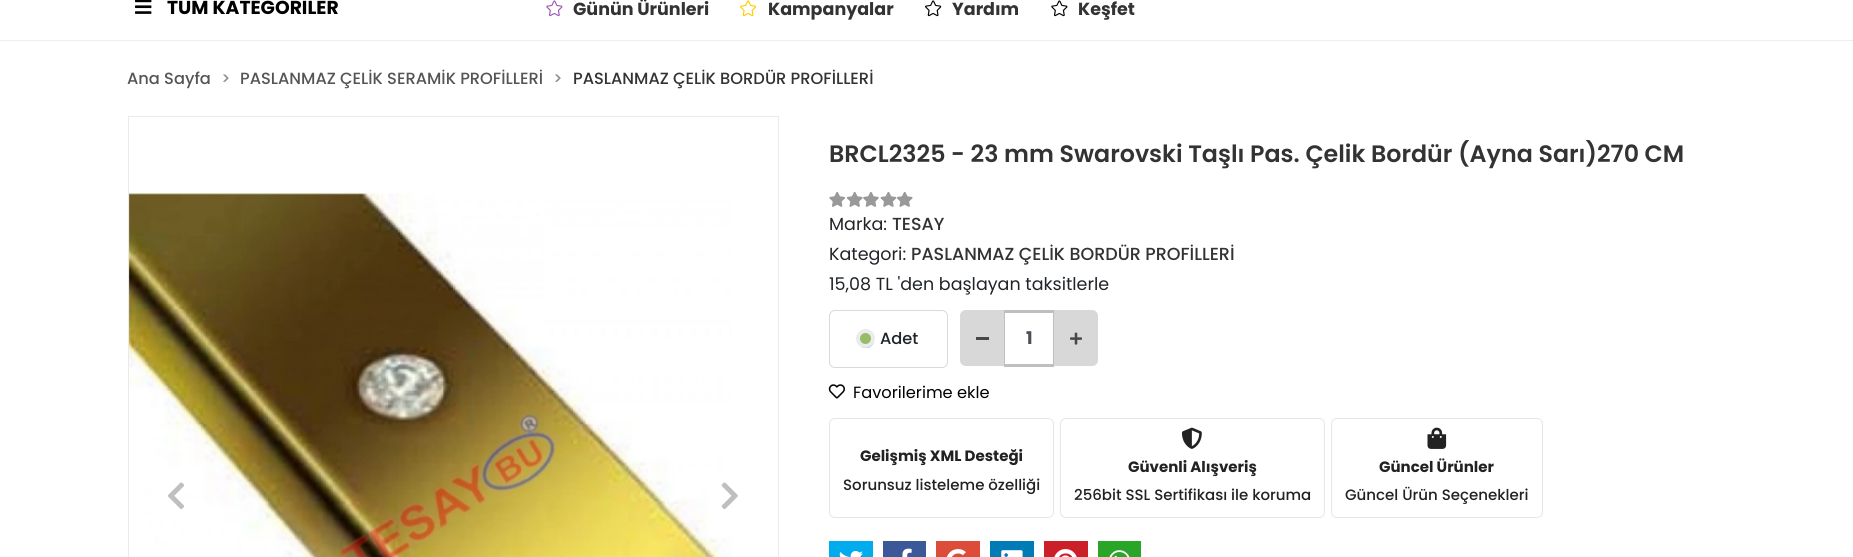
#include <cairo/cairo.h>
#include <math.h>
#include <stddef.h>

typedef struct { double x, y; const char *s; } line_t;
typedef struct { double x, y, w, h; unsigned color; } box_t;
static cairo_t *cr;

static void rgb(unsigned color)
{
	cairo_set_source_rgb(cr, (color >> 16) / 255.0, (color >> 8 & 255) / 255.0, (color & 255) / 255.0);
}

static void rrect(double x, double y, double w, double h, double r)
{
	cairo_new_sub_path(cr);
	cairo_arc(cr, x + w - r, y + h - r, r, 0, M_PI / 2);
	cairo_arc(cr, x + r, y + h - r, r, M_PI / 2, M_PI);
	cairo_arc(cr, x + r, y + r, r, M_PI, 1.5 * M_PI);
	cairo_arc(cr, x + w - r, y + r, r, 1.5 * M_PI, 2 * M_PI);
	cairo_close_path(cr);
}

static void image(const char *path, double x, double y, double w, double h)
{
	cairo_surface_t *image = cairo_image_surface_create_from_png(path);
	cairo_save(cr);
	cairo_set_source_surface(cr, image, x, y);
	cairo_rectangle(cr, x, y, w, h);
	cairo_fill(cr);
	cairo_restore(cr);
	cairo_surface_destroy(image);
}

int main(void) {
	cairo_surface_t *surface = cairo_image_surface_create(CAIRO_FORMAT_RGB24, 1853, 557);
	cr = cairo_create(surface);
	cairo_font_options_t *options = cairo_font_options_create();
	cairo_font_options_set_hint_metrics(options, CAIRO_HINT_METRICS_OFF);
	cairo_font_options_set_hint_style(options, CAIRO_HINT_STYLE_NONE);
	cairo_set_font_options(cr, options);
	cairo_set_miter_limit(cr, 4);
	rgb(0xffffff);
	cairo_paint(cr);
	rgb(0xeeeeee);
	cairo_rectangle(cr, 0, 40, 1853, 1);
	cairo_fill(cr);
	image("img/1.png", 135, 0, 17, 14);
	image("img/2.png", 546, 0, 17, 17);
	image("img/3.png", 740, 0, 17, 17);
	image("img/4.png", 925, 0, 17, 17);
	image("img/5.png", 1051, 0, 17, 17);
	cairo_rectangle(cr, 128.5, 116.5, 650, 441);
	rgb(0xeaeaea);
	cairo_set_line_width(cr, 1);
	cairo_stroke(cr);
	image("img/6.png", 129, 191, 603, 366);
	image("img/7.png", 168, 482, 16, 27);
	image("img/8.png", 721, 482, 17, 27);
	image("img/9.png", 829, 191, 16, 16);
	image("img/10.png", 846, 191, 17, 16);
	image("img/11.png", 863, 192, 16, 15);
	image("img/12.png", 880, 191, 17, 16);
	image("img/13.png", 896, 191, 17, 16);
	rrect(829.5, 310.5, 118, 57, 5.5);
	rgb(0xd9d9d9);
	cairo_stroke(cr);
	rrect(858.5, 331.5, 15, 16, 7.5);
	rgb(0x0075ff);
	cairo_stroke(cr);
	rgb(0x96be67);
	cairo_arc(cr, 865.5, 338.5, 7.5, 0, 2 * M_PI);
	cairo_fill_preserve(cr);
	rgb(0xebebeb);
	cairo_set_line_width(cr, 4);
	cairo_stroke(cr);
	rgb(0xd8d8d8);
	cairo_new_path(cr);
	cairo_move_to(cr, 966, 310);
	cairo_line_to(cr, 1004, 310);
	cairo_line_to(cr, 1004, 366);
	cairo_line_to(cr, 966, 366);
	cairo_curve_to(cr, 962.5, 366, 960, 363.5, 960, 360);
	cairo_line_to(cr, 960, 316);
	cairo_curve_to(cr, 960, 312.5, 962.5, 310, 966, 310);
	cairo_close_path(cr);
	cairo_fill(cr);
	{
		static const box_t items[] = {
			{976, 337, 13, 3, 0x484848},
			{1004, 310, 50, 3, 0xbfbfbf},
			{1053, 310, 1, 56, 0xbfbfbf},
			{1004, 364, 50, 3, 0xbfbfbf},
			{1004, 310, 1, 56, 0xbfbfbf},
		};
		for (size_t i = 0; i < sizeof items / sizeof *items; i++) {
			rgb(items[i].color);
			cairo_rectangle(cr, items[i].x, items[i].y, items[i].w, items[i].h);
			cairo_fill(cr);
		}
	}
	rgb(0xd8d8d8);
	cairo_new_path(cr);
	cairo_move_to(cr, 1054, 310);
	cairo_line_to(cr, 1092, 310);
	cairo_curve_to(cr, 1095.5, 310, 1098, 312.5, 1098, 316);
	cairo_line_to(cr, 1098, 360);
	cairo_curve_to(cr, 1098, 363.5, 1095.5, 366, 1092, 366);
	cairo_line_to(cr, 1054, 366);
	cairo_close_path(cr);
	cairo_fill(cr);
	image("img/14.png", 1070, 332, 12, 13);
	image("img/15.png", 828, 384, 17, 15);
	rrect(829.5, 418.5, 224, 99, 5.5);
	rgb(0xe6e6e6);
	cairo_set_line_width(cr, 1);
	cairo_stroke(cr);
	rrect(1060.5, 418.5, 264, 99, 5.5);
	cairo_stroke(cr);
	image("img/16.png", 1181, 427, 21, 22);
	rrect(1331.5, 418.5, 211, 99, 5.5);
	cairo_stroke(cr);
	image("img/17.png", 1427, 427, 20, 22);
	rgb(0x00aced);
	cairo_rectangle(cr, 829, 541, 44, 16);
	cairo_fill(cr);
	image("img/18.png", 839, 551, 24, 6);
	rgb(0x3b5998);
	cairo_rectangle(cr, 883, 541, 43, 16);
	cairo_fill(cr);
	image("img/19.png", 902, 548, 10, 9);
	rgb(0xdd4b39);
	cairo_rectangle(cr, 936, 541, 44, 16);
	cairo_fill(cr);
	image("img/20.png", 947, 549, 19, 8);
	rgb(0x007bb6);
	cairo_rectangle(cr, 990, 541, 44, 16);
	cairo_fill(cr);
	image("img/21.png", 1001, 550, 22, 7);
	rgb(0xcb2027);
	cairo_rectangle(cr, 1044, 541, 44, 16);
	cairo_fill(cr);
	image("img/22.png", 1054, 549, 23, 8);
	rgb(0x29a628);
	cairo_rectangle(cr, 1098, 541, 43, 16);
	cairo_fill(cr);
	image("img/23.png", 1109, 550, 21, 7);
	cairo_select_font_face(cr, "Poppins", CAIRO_FONT_SLANT_NORMAL, CAIRO_FONT_WEIGHT_BOLD);
	cairo_set_font_size(cr, 18.75);
	rgb(0x000000);
	cairo_move_to(cr, 167, 14);
	cairo_show_text(cr, "TÜM KATEGORİLER");
	cairo_set_font_size(cr, 17.5);
	rgb(0x333333);
	{
		static const line_t items[] = {
			{573, 15, "Günün Ürünleri"},
			{768, 15, "Kampanyalar"},
			{952, 15, "Yardım"},
			{1078, 15, "Keşfet"},
		};
		for (size_t i = 0; i < sizeof items / sizeof *items; i++) {
			cairo_move_to(cr, items[i].x, items[i].y);
			cairo_show_text(cr, items[i].s);
		}
	}
	cairo_select_font_face(cr, "Poppins Medium", CAIRO_FONT_SLANT_NORMAL, CAIRO_FONT_WEIGHT_NORMAL);
	cairo_set_font_size(cr, 16.25);
	rgb(0x555555);
	cairo_move_to(cr, 127, 84);
	cairo_show_text(cr, "Ana Sayfa");
	rgb(0x8e8e8e);
	cairo_move_to(cr, 221, 84);
	cairo_show_text(cr, ">");
	rgb(0x555555);
	cairo_move_to(cr, 240, 84);
	cairo_show_text(cr, "PASLANMAZ ÇELİK SERAMİK PROFİLLERİ");
	rgb(0x8e8e8e);
	cairo_move_to(cr, 553, 84);
	cairo_show_text(cr, ">");
	rgb(0x333333);
	cairo_move_to(cr, 573, 84);
	cairo_show_text(cr, "PASLANMAZ ÇELİK BORDÜR PROFİLLERİ");
	cairo_select_font_face(cr, "Poppins SemiBold", CAIRO_FONT_SLANT_NORMAL, CAIRO_FONT_WEIGHT_NORMAL);
	cairo_set_font_size(cr, 23.75);
	cairo_move_to(cr, 829, 162);
	cairo_show_text(cr, "BRCL2325 - 23 mm Swarovski Taşlı Pas. Çelik Bordür (Ayna Sarı)270 CM");
	cairo_select_font_face(cr, "Poppins", CAIRO_FONT_SLANT_NORMAL, CAIRO_FONT_WEIGHT_NORMAL);
	cairo_set_font_size(cr, 17.5);
	rgb(0x212529);
	cairo_move_to(cr, 829, 230);
	cairo_show_text(cr, "Marka:");
	cairo_select_font_face(cr, "Poppins Medium", CAIRO_FONT_SLANT_NORMAL, CAIRO_FONT_WEIGHT_NORMAL);
	rgb(0x333333);
	cairo_move_to(cr, 892, 230);
	cairo_show_text(cr, "TESAY");
	cairo_select_font_face(cr, "Poppins", CAIRO_FONT_SLANT_NORMAL, CAIRO_FONT_WEIGHT_NORMAL);
	rgb(0x212529);
	cairo_move_to(cr, 829, 260);
	cairo_show_text(cr, "Kategori:");
	cairo_select_font_face(cr, "Poppins Medium", CAIRO_FONT_SLANT_NORMAL, CAIRO_FONT_WEIGHT_NORMAL);
	rgb(0x333333);
	cairo_move_to(cr, 911, 260);
	cairo_show_text(cr, "PASLANMAZ ÇELİK BORDÜR PROFİLLERİ");
	cairo_select_font_face(cr, "Poppins", CAIRO_FONT_SLANT_NORMAL, CAIRO_FONT_WEIGHT_NORMAL);
	rgb(0x212529);
	cairo_move_to(cr, 829, 290);
	cairo_show_text(cr, "15,08 TL 'den başlayan taksitlerle");
	cairo_select_font_face(cr, "Poppins Medium", CAIRO_FONT_SLANT_NORMAL, CAIRO_FONT_WEIGHT_NORMAL);
	cairo_set_font_size(cr, 16.25);
	cairo_move_to(cr, 880, 344);
	cairo_show_text(cr, "Adet");
	cairo_select_font_face(cr, "Poppins", CAIRO_FONT_SLANT_NORMAL, CAIRO_FONT_WEIGHT_BOLD);
	cairo_set_font_size(cr, 17.5);
	rgb(0x495057);
	cairo_move_to(cr, 1026, 344);
	cairo_show_text(cr, "1");
	cairo_select_font_face(cr, "Poppins", CAIRO_FONT_SLANT_NORMAL, CAIRO_FONT_WEIGHT_NORMAL);
	cairo_set_font_size(cr, 16.25);
	rgb(0x000000);
	cairo_move_to(cr, 853, 398);
	cairo_show_text(cr, "Favorilerime ekle");
	cairo_select_font_face(cr, "Poppins", CAIRO_FONT_SLANT_NORMAL, CAIRO_FONT_WEIGHT_BOLD);
	cairo_set_font_size(cr, 15);
	rgb(0x222222);
	cairo_move_to(cr, 860, 461);
	cairo_show_text(cr, "Gelişmiş XML Desteği");
	cairo_select_font_face(cr, "Poppins Medium", CAIRO_FONT_SLANT_NORMAL, CAIRO_FONT_WEIGHT_NORMAL);
	cairo_move_to(cr, 843, 490);
	cairo_show_text(cr, "Sorunsuz listeleme özelliği");
	cairo_select_font_face(cr, "Poppins", CAIRO_FONT_SLANT_NORMAL, CAIRO_FONT_WEIGHT_BOLD);
	cairo_move_to(cr, 1128, 472);
	cairo_show_text(cr, "Güvenli Alışveriş");
	cairo_select_font_face(cr, "Poppins Medium", CAIRO_FONT_SLANT_NORMAL, CAIRO_FONT_WEIGHT_NORMAL);
	cairo_move_to(cr, 1074, 500);
	cairo_show_text(cr, "256bit SSL Sertifikası ile koruma");
	cairo_select_font_face(cr, "Poppins", CAIRO_FONT_SLANT_NORMAL, CAIRO_FONT_WEIGHT_BOLD);
	cairo_move_to(cr, 1379, 472);
	cairo_show_text(cr, "Güncel Ürünler");
	cairo_select_font_face(cr, "Poppins Medium", CAIRO_FONT_SLANT_NORMAL, CAIRO_FONT_WEIGHT_NORMAL);
	cairo_move_to(cr, 1345, 500);
	cairo_show_text(cr, "Güncel Ürün Seçenekleri");
	cairo_surface_write_to_png(surface, "page.png");
	cairo_font_options_destroy(options);
	cairo_destroy(cr);
	cairo_surface_destroy(surface);
	return 0;
}
